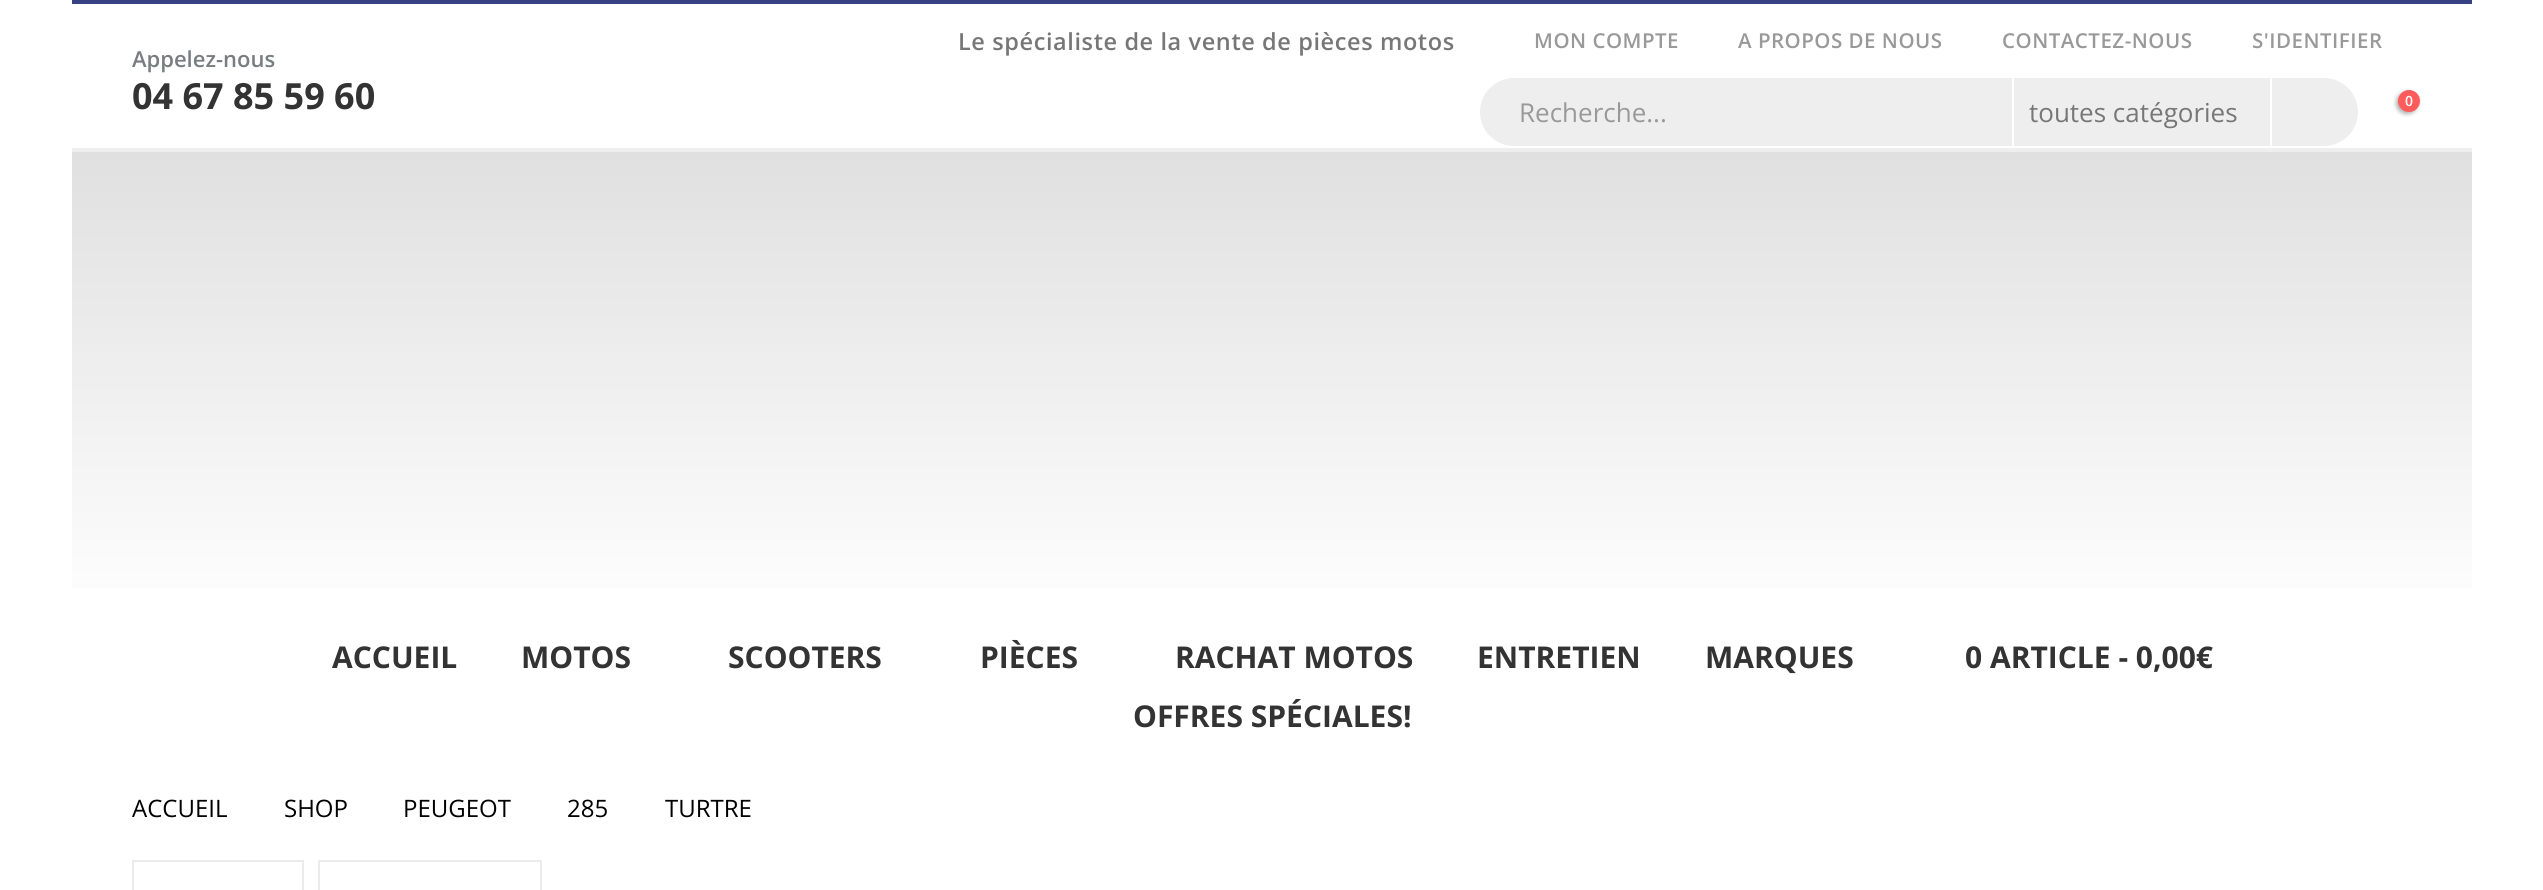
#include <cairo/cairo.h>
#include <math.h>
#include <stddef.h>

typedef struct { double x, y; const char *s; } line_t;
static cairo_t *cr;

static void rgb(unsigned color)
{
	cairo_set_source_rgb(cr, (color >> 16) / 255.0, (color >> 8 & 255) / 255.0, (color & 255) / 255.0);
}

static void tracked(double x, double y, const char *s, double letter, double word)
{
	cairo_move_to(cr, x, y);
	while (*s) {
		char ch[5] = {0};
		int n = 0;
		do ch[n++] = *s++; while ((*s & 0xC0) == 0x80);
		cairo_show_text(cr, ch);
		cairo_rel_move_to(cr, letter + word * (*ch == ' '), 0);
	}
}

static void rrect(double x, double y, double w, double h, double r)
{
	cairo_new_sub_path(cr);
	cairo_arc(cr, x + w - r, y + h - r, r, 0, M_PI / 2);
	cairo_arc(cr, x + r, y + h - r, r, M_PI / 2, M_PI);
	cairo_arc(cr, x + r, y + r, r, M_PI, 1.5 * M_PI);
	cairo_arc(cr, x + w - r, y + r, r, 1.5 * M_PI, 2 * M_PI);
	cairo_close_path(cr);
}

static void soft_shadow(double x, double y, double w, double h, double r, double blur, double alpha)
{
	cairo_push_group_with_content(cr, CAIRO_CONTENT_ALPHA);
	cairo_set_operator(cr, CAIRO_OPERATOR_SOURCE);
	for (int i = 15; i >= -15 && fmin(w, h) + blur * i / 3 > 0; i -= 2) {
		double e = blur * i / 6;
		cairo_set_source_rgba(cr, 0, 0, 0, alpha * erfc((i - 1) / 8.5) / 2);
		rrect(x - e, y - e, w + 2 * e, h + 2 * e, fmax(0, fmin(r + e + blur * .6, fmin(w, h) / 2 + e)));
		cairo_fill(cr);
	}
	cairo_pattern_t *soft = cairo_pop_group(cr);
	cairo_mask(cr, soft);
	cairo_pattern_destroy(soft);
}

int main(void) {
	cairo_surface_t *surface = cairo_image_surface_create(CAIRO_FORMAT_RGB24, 2543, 890);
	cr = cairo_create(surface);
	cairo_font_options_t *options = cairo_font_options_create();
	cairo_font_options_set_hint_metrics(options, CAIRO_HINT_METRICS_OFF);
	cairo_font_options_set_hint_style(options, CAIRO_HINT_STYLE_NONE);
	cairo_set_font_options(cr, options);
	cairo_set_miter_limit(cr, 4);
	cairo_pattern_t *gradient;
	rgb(0xffffff);
	cairo_paint(cr);
	rgb(0x384184);
	cairo_rectangle(cr, 72, 0, 2400, 4);
	cairo_fill(cr);
	rgb(0xeeeeee);
	cairo_rectangle(cr, 72, 148, 2400, 4);
	cairo_fill(cr);
	rrect(1479, 77, 880, 70, 35);
	cairo_fill_preserve(cr);
	rgb(0xffffff);
	cairo_stroke(cr);
	cairo_rectangle(cr, 2270, 78, 2, 68);
	cairo_fill(cr);
	cairo_rectangle(cr, 2012, 78, 2, 68);
	cairo_fill(cr);
	rgb(0x000000);
	soft_shadow(2396, 92, 22, 22, 11, 2, 0.3);
	rgb(0xff5b5b);
	cairo_arc(cr, 2409, 101, 11, 0, 2 * M_PI);
	cairo_fill(cr);
	gradient = cairo_pattern_create_linear(1272, 152, 1272, 626);
	cairo_pattern_add_color_stop_rgba(gradient, 0, 0.878, 0.878, 0.878, 1);
	cairo_pattern_add_color_stop_rgba(gradient, 1, 1, 1, 1, 1);
	cairo_set_source(cr, gradient);
	cairo_pattern_destroy(gradient);
	cairo_rectangle(cr, 72, 152, 2400, 436);
	cairo_fill(cr);
	cairo_rectangle(cr, 133, 861, 170, 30);
	rgb(0xebebeb);
	cairo_stroke(cr);
	cairo_rectangle(cr, 319, 861, 222, 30);
	cairo_stroke(cr);
	cairo_select_font_face(cr, "Open Sans SemiBold", CAIRO_FONT_SLANT_NORMAL, CAIRO_FONT_WEIGHT_NORMAL);
	cairo_set_font_size(cr, 22);
	rgb(0x787d7f);
	cairo_move_to(cr, 132, 67);
	cairo_show_text(cr, "Appelez-nous");
	cairo_select_font_face(cr, "Open Sans", CAIRO_FONT_SLANT_NORMAL, CAIRO_FONT_WEIGHT_BOLD);
	cairo_set_font_size(cr, 36);
	rgb(0x333333);
	cairo_move_to(cr, 132, 109);
	cairo_show_text(cr, "04 67 85 59 60");
	cairo_select_font_face(cr, "Open Sans SemiBold", CAIRO_FONT_SLANT_NORMAL, CAIRO_FONT_WEIGHT_NORMAL);
	cairo_set_font_size(cr, 23.5);
	rgb(0x777777);
	tracked(958, 50, "Le spécialiste de la vente de pièces motos", 0.6, 0);
	cairo_set_font_size(cr, 20.5);
	rgb(0x999999);
	{
		static const line_t items[] = {
			{1534, 48, "MON COMPTE"},
			{1738, 48, "A PROPOS DE NOUS"},
			{2002, 48, "CONTACTEZ-NOUS"},
			{2252, 48, "S'IDENTIFIER"},
		};
		for (size_t i = 0; i < sizeof items / sizeof *items; i++) {
			tracked(items[i].x, items[i].y, items[i].s, 0.5, 0);
		}
	}
	cairo_select_font_face(cr, "Open Sans", CAIRO_FONT_SLANT_NORMAL, CAIRO_FONT_WEIGHT_NORMAL);
	cairo_set_font_size(cr, 26);
	cairo_move_to(cr, 1519, 122);
	cairo_show_text(cr, "Recherche...");
	rgb(0x777777);
	cairo_move_to(cr, 2029, 122);
	cairo_show_text(cr, "toutes catégories");
	cairo_select_font_face(cr, "Open Sans SemiBold", CAIRO_FONT_SLANT_NORMAL, CAIRO_FONT_WEIGHT_NORMAL);
	cairo_set_font_size(cr, 14);
	rgb(0xffffff);
	cairo_move_to(cr, 2405, 106);
	cairo_show_text(cr, "0");
	cairo_select_font_face(cr, "Open Sans", CAIRO_FONT_SLANT_NORMAL, CAIRO_FONT_WEIGHT_BOLD);
	cairo_set_font_size(cr, 30);
	rgb(0x333333);
	{
		static const line_t items[] = {
			{332, 668, "ACCUEIL"},
			{521, 668, "MOTOS"},
			{728, 668, "SCOOTERS"},
			{980, 668, "PIÈCES"},
			{1175, 668, "RACHAT MOTOS"},
			{1477, 668, "ENTRETIEN"},
			{1705, 668, "MARQUES"},
			{1965, 668, "0 ARTICLE - 0,00€"},
			{1133, 727, "OFFRES SPÉCIALES!"},
		};
		for (size_t i = 0; i < sizeof items / sizeof *items; i++) {
			cairo_move_to(cr, items[i].x, items[i].y);
			cairo_show_text(cr, items[i].s);
		}
	}
	cairo_select_font_face(cr, "Open Sans", CAIRO_FONT_SLANT_NORMAL, CAIRO_FONT_WEIGHT_NORMAL);
	cairo_set_font_size(cr, 24);
	rgb(0x000000);
	{
		static const line_t items[] = {
			{132, 817, "ACCUEIL"},
			{284, 817, "SHOP"},
			{403, 817, "PEUGEOT"},
			{567, 817, "285"},
			{665, 817, "TURTRE"},
		};
		for (size_t i = 0; i < sizeof items / sizeof *items; i++) {
			cairo_move_to(cr, items[i].x, items[i].y);
			cairo_show_text(cr, items[i].s);
		}
	}
	cairo_surface_write_to_png(surface, "page.png");
	cairo_font_options_destroy(options);
	cairo_destroy(cr);
	cairo_surface_destroy(surface);
	return 0;
}
